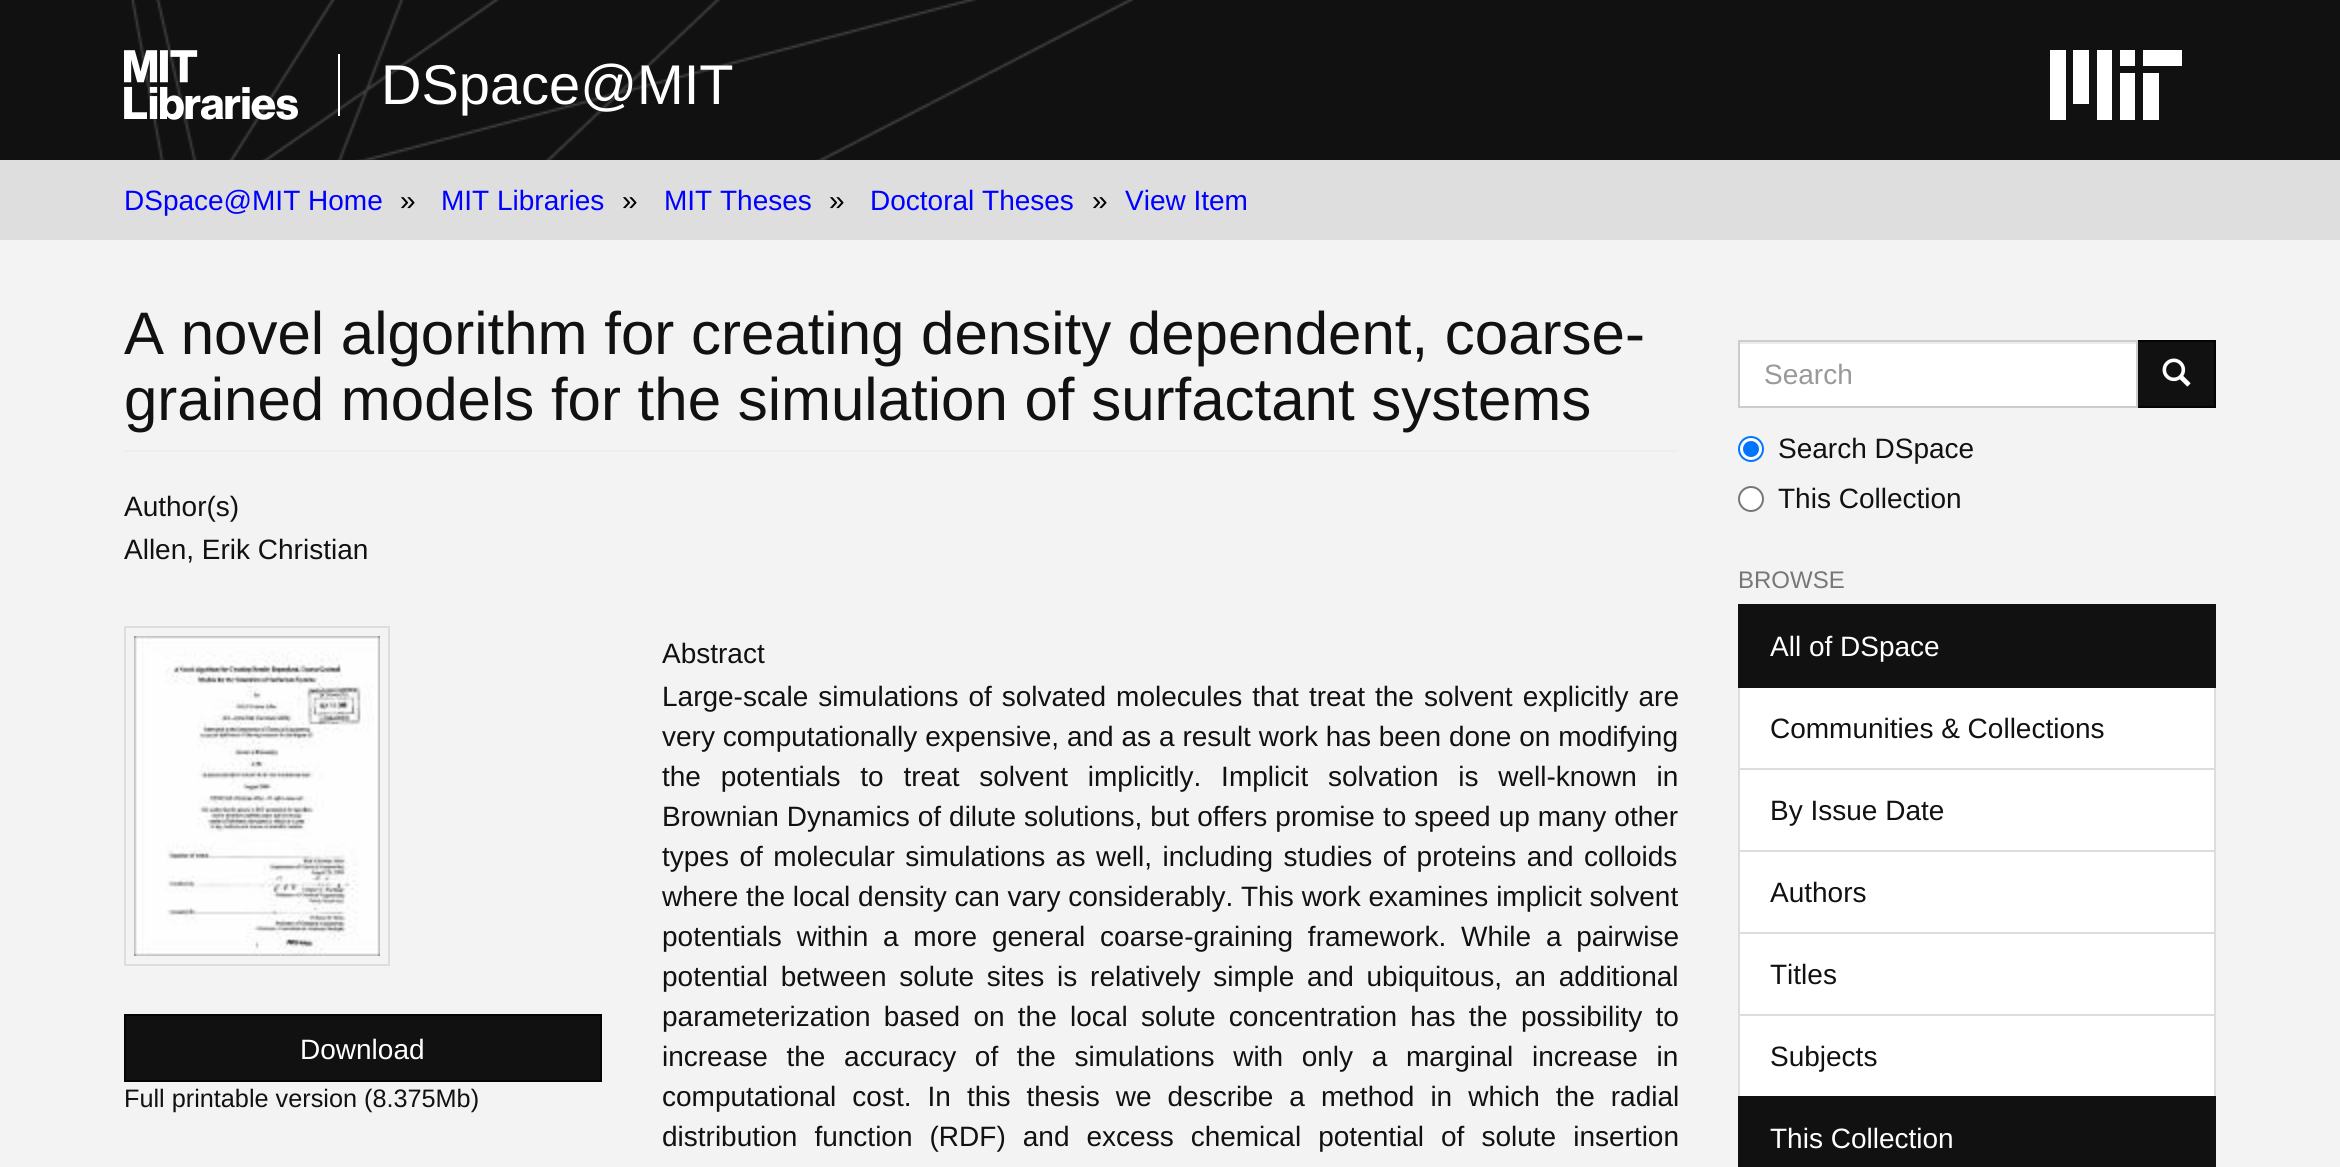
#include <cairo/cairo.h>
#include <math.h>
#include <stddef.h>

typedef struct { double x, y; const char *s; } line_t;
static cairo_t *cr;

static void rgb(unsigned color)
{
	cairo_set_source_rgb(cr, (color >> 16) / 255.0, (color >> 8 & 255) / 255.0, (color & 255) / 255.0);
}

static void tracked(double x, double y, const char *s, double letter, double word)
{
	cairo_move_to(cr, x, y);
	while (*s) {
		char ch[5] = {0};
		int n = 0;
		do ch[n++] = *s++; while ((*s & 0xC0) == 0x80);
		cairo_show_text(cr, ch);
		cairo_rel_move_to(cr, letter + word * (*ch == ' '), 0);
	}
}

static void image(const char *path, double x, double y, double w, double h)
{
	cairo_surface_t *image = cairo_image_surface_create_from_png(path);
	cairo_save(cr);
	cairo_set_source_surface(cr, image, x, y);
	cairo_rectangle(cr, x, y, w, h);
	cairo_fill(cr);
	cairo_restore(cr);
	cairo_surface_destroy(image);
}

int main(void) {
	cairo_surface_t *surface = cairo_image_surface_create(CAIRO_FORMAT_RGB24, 2340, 1167);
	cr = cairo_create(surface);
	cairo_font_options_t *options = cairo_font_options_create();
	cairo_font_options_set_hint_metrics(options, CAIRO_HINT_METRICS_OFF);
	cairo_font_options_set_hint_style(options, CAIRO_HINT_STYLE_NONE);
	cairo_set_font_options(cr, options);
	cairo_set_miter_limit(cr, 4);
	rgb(0xf3f3f3);
	cairo_paint(cr);
	rgb(0x111111);
	cairo_rectangle(cr, 0, 0, 2340, 160);
	cairo_fill(cr);
	image("img/1.png", 130, 0, 1004, 160);
	image("img/2.png", 124, 50, 174, 70);
	rgb(0xffffff);
	cairo_rectangle(cr, 338, 54, 2, 62);
	cairo_fill(cr);
	cairo_new_path(cr);
	cairo_move_to(cr, 2120, 120);
	cairo_line_to(cr, 2135, 120);
	cairo_line_to(cr, 2135, 73);
	cairo_line_to(cr, 2120, 73);
	cairo_close_path(cr);
	cairo_move_to(cr, 2143, 66);
	cairo_line_to(cr, 2182, 66);
	cairo_line_to(cr, 2182, 50);
	cairo_line_to(cr, 2143, 50);
	cairo_close_path(cr);
	cairo_move_to(cr, 2120, 50);
	cairo_line_to(cr, 2135, 50);
	cairo_line_to(cr, 2135, 66);
	cairo_line_to(cr, 2120, 66);
	cairo_close_path(cr);
	cairo_move_to(cr, 2097, 120);
	cairo_line_to(cr, 2112, 120);
	cairo_line_to(cr, 2112, 50);
	cairo_line_to(cr, 2097, 50);
	cairo_close_path(cr);
	cairo_move_to(cr, 2073, 104);
	cairo_line_to(cr, 2089, 104);
	cairo_line_to(cr, 2089, 50);
	cairo_line_to(cr, 2073, 50);
	cairo_close_path(cr);
	cairo_move_to(cr, 2050, 120);
	cairo_line_to(cr, 2066, 120);
	cairo_line_to(cr, 2066, 50);
	cairo_line_to(cr, 2050, 50);
	cairo_close_path(cr);
	cairo_move_to(cr, 2143, 120);
	cairo_line_to(cr, 2159, 120);
	cairo_line_to(cr, 2159, 73);
	cairo_line_to(cr, 2143, 73);
	cairo_close_path(cr);
	cairo_fill(cr);
	rgb(0xdedede);
	cairo_rectangle(cr, 0, 160, 2340, 80);
	cairo_fill(cr);
	rgb(0xeeeeee);
	cairo_rectangle(cr, 124, 450, 1554, 2);
	cairo_fill(cr);
	cairo_rectangle(cr, 125, 627, 264, 338);
	rgb(0xdddddd);
	cairo_stroke(cr);
	image("img/3.png", 134, 636, 246, 320);
	rgb(0x111111);
	cairo_rectangle(cr, 125, 1015, 476, 66);
	cairo_fill_preserve(cr);
	rgb(0x040404);
	cairo_stroke(cr);
	rgb(0xffffff);
	cairo_rectangle(cr, 1740, 344, 396, 62);
	cairo_fill(cr);
	rgb(0xececec);
	cairo_rectangle(cr, 1740, 342, 396, 2);
	cairo_fill(cr);
	rgb(0x111111);
	cairo_rectangle(cr, 2137, 341, 78, 66);
	cairo_fill_preserve(cr);
	rgb(0x040404);
	cairo_stroke(cr);
	cairo_rectangle(cr, 1739, 341, 398, 66);
	rgb(0xcccccc);
	cairo_stroke(cr);
	image("img/4.png", 2162, 358, 29, 29);
	rgb(0xffffff);
	cairo_arc(cr, 1751, 449, 12, 0, 2 * M_PI);
	cairo_fill_preserve(cr);
	rgb(0x0075ff);
	cairo_stroke(cr);
	cairo_arc(cr, 1751, 449, 8, 0, 2 * M_PI);
	cairo_fill(cr);
	rgb(0xffffff);
	cairo_arc(cr, 1751, 499, 12, 0, 2 * M_PI);
	cairo_fill_preserve(cr);
	rgb(0x767676);
	cairo_stroke(cr);
	rgb(0xffffff);
	cairo_rectangle(cr, 1739, 687, 476, 82);
	cairo_fill_preserve(cr);
	rgb(0xdddddd);
	cairo_stroke(cr);
	rgb(0x111111);
	cairo_rectangle(cr, 1738, 604, 478, 84);
	cairo_fill(cr);
	rgb(0xffffff);
	cairo_rectangle(cr, 1739, 769, 476, 82);
	cairo_fill_preserve(cr);
	rgb(0xdddddd);
	cairo_stroke(cr);
	rgb(0xffffff);
	cairo_rectangle(cr, 1739, 851, 476, 82);
	cairo_fill_preserve(cr);
	rgb(0xdddddd);
	cairo_stroke(cr);
	rgb(0xffffff);
	cairo_rectangle(cr, 1739, 933, 476, 82);
	cairo_fill_preserve(cr);
	rgb(0xdddddd);
	cairo_stroke(cr);
	rgb(0xffffff);
	cairo_rectangle(cr, 1739, 1015, 476, 82);
	cairo_fill_preserve(cr);
	rgb(0xdddddd);
	cairo_stroke(cr);
	rgb(0x111111);
	cairo_rectangle(cr, 1738, 1096, 478, 71);
	cairo_fill(cr);
	cairo_select_font_face(cr, "Liberation Sans", CAIRO_FONT_SLANT_NORMAL, CAIRO_FONT_WEIGHT_NORMAL);
	cairo_set_font_size(cr, 56);
	rgb(0xffffff);
	cairo_move_to(cr, 381, 104);
	cairo_show_text(cr, "DSpace@MIT");
	cairo_set_font_size(cr, 28);
	rgb(0x0000ff);
	cairo_move_to(cr, 124, 210);
	cairo_show_text(cr, "DSpace@MIT Home");
	rgb(0x000000);
	cairo_move_to(cr, 400, 210);
	cairo_show_text(cr, "»");
	rgb(0x0000ff);
	cairo_move_to(cr, 441, 210);
	cairo_show_text(cr, "MIT Libraries");
	rgb(0x000000);
	cairo_move_to(cr, 622, 210);
	cairo_show_text(cr, "»");
	rgb(0x0000ff);
	cairo_move_to(cr, 664, 210);
	cairo_show_text(cr, "MIT Theses");
	rgb(0x000000);
	cairo_move_to(cr, 829, 210);
	cairo_show_text(cr, "»");
	rgb(0x0000ff);
	cairo_move_to(cr, 870, 210);
	cairo_show_text(cr, "Doctoral Theses");
	rgb(0x000000);
	cairo_move_to(cr, 1092, 210);
	cairo_show_text(cr, "»");
	rgb(0x0000ff);
	cairo_move_to(cr, 1125, 210);
	cairo_show_text(cr, "View Item");
	cairo_set_font_size(cr, 60);
	rgb(0x111111);
	cairo_move_to(cr, 124, 354);
	cairo_show_text(cr, "A novel algorithm for creating density dependent, coarse-");
	cairo_move_to(cr, 124, 420);
	cairo_show_text(cr, "grained models for the simulation of surfactant systems");
	cairo_set_font_size(cr, 28);
	cairo_move_to(cr, 124, 516);
	cairo_show_text(cr, "Author(s)");
	cairo_move_to(cr, 124, 559);
	cairo_show_text(cr, "Allen, Erik Christian");
	rgb(0xffffff);
	cairo_move_to(cr, 300, 1059);
	cairo_show_text(cr, "Download");
	cairo_set_font_size(cr, 25.25);
	rgb(0x111111);
	cairo_move_to(cr, 124, 1107);
	cairo_show_text(cr, "Full printable version (8.375Mb)");
	cairo_set_font_size(cr, 28);
	cairo_move_to(cr, 662, 663);
	cairo_show_text(cr, "Abstract");
	tracked(662, 706, "Large-scale simulations of solvated molecules that treat the solvent explicitly are", 0, 2.25);
	tracked(662, 746, "very computationally expensive, and as a result work has been done on modifying", 0, 0.1);
	tracked(662, 786, "the potentials to treat solvent implicitly. Implicit solvation is well-known in", 0, 12);
	tracked(662, 826, "Brownian Dynamics of dilute solutions, but offers promise to speed up many other", 0, 0.25);
	tracked(662, 866, "types of molecular simulations as well, including studies of proteins and colloids", 0, 2.75);
	cairo_move_to(cr, 662, 906);
	cairo_show_text(cr, "where the local density can vary considerably. This work examines implicit solvent");
	tracked(662, 946, "potentials within a more general coarse-graining framework. While a pairwise", 0, 7);
	tracked(662, 986, "potential between solute sites is relatively simple and ubiquitous, an additional", 0, 5);
	tracked(662, 1026, "parameterization based on the local solute concentration has the possibility to", 0, 5.5);
	tracked(662, 1066, "increase the accuracy of the simulations with only a marginal increase in", 0, 10.9);
	tracked(662, 1106, "computational cost. In this thesis we describe a method in which the radial", 0, 8.25);
	tracked(662, 1146, "distribution function (RDF) and excess chemical potential of solute insertion", 0, 9.25);
	rgb(0x999999);
	cairo_move_to(cr, 1764, 384);
	cairo_show_text(cr, "Search");
	rgb(0x111111);
	cairo_move_to(cr, 1778, 458);
	cairo_show_text(cr, "Search DSpace");
	cairo_move_to(cr, 1778, 508);
	cairo_show_text(cr, "This Collection");
	cairo_set_font_size(cr, 24);
	rgb(0x777777);
	cairo_move_to(cr, 1738, 588);
	cairo_show_text(cr, "BROWSE");
	cairo_set_font_size(cr, 28);
	rgb(0xffffff);
	cairo_move_to(cr, 1770, 656);
	cairo_show_text(cr, "All of DSpace");
	rgb(0x111111);
	{
		static const line_t items[] = {
			{1770, 738, "Communities & Collections"},
			{1770, 820, "By Issue Date"},
			{1770, 902, "Authors"},
			{1770, 984, "Titles"},
			{1770, 1066, "Subjects"},
		};
		for (size_t i = 0; i < sizeof items / sizeof *items; i++) {
			cairo_move_to(cr, items[i].x, items[i].y);
			cairo_show_text(cr, items[i].s);
		}
	}
	rgb(0xffffff);
	cairo_move_to(cr, 1770, 1148);
	cairo_show_text(cr, "This Collection");
	cairo_surface_write_to_png(surface, "page.png");
	cairo_font_options_destroy(options);
	cairo_destroy(cr);
	cairo_surface_destroy(surface);
	return 0;
}
